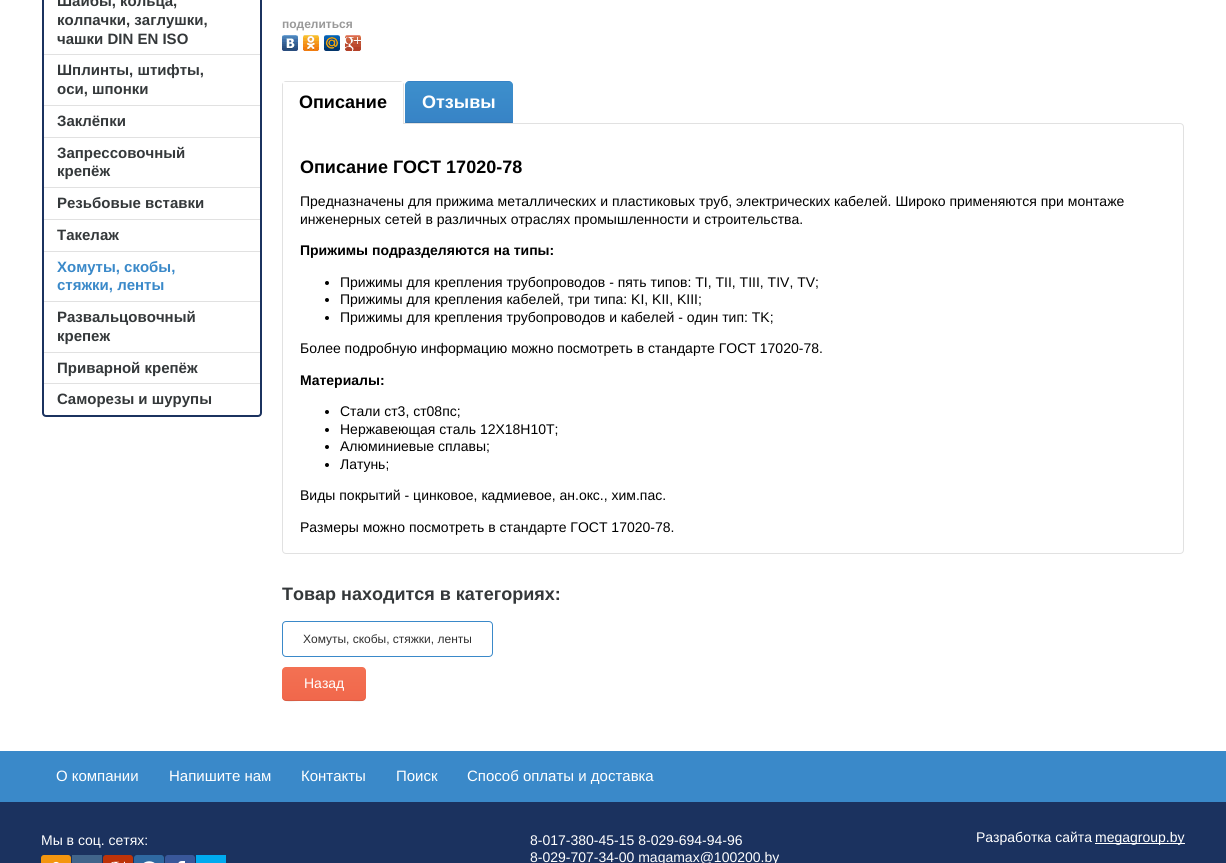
#include <cairo/cairo.h>
#include <math.h>
#include <stddef.h>

typedef struct { double x, y; const char *s; } line_t;
typedef struct { double x, y, w, h; unsigned color; } box_t;
static cairo_t *cr;

static void rgb(unsigned color)
{
	cairo_set_source_rgb(cr, (color >> 16) / 255.0, (color >> 8 & 255) / 255.0, (color & 255) / 255.0);
}

static void rrect(double x, double y, double w, double h, double r)
{
	cairo_new_sub_path(cr);
	cairo_arc(cr, x + w - r, y + h - r, r, 0, M_PI / 2);
	cairo_arc(cr, x + r, y + h - r, r, M_PI / 2, M_PI);
	cairo_arc(cr, x + r, y + r, r, M_PI, 1.5 * M_PI);
	cairo_arc(cr, x + w - r, y + r, r, 1.5 * M_PI, 2 * M_PI);
	cairo_close_path(cr);
}

static void image(const char *path, double x, double y, double w, double h)
{
	cairo_surface_t *image = cairo_image_surface_create_from_png(path);
	cairo_save(cr);
	cairo_set_source_surface(cr, image, x, y);
	cairo_rectangle(cr, x, y, w, h);
	cairo_fill(cr);
	cairo_restore(cr);
	cairo_surface_destroy(image);
}

int main(void) {
	cairo_surface_t *surface = cairo_image_surface_create(CAIRO_FORMAT_RGB24, 1226, 863);
	cr = cairo_create(surface);
	cairo_font_options_t *options = cairo_font_options_create();
	cairo_font_options_set_hint_metrics(options, CAIRO_HINT_METRICS_OFF);
	cairo_font_options_set_hint_style(options, CAIRO_HINT_STYLE_NONE);
	cairo_set_font_options(cr, options);
	cairo_set_miter_limit(cr, 4);
	cairo_pattern_t *gradient;
	rgb(0xffffff);
	cairo_paint(cr);
	rrect(43, -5, 218, 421, 3);
	rgb(0x1b325f);
	cairo_stroke(cr);
	{
		static const box_t items[] = {
			{44, 54, 216, 1, 0xe1e1e1},
			{44, 105, 216, 1, 0xe1e1e1},
			{44, 137, 216, 1, 0xe1e1e1},
			{44, 187, 216, 1, 0xe1e1e1},
			{44, 219, 216, 1, 0xe1e1e1},
			{44, 251, 216, 1, 0xe1e1e1},
			{44, 301, 216, 1, 0xe1e1e1},
			{44, 352, 216, 1, 0xe1e1e1},
			{44, 383, 216, 1, 0xe1e1e1},
		};
		for (size_t i = 0; i < sizeof items / sizeof *items; i++) {
			rgb(items[i].color);
			cairo_rectangle(cr, items[i].x, items[i].y, items[i].w, items[i].h);
			cairo_fill(cr);
		}
	}
	image("img/1.png", 282, 35, 16, 16);
	image("img/2.png", 303, 35, 16, 16);
	image("img/3.png", 324, 35, 16, 16);
	image("img/4.png", 345, 35, 16, 16);
	cairo_new_path(cr);
	cairo_move_to(cr, 282.5, 123.5);
	cairo_line_to(cr, 1180, 123.5);
	cairo_curve_to(cr, 1182, 123.5, 1183.5, 125, 1183.5, 127);
	cairo_line_to(cr, 1183.5, 550);
	cairo_curve_to(cr, 1183.5, 552, 1182, 553.5, 1180, 553.5);
	cairo_line_to(cr, 286, 553.5);
	cairo_curve_to(cr, 284, 553.5, 282.5, 552, 282.5, 550);
	cairo_close_path(cr);
	cairo_set_line_width(cr, 1);
	cairo_stroke(cr);
	rgb(0xffffff);
	cairo_new_path(cr);
	cairo_move_to(cr, 286, 81);
	cairo_line_to(cr, 400, 81);
	cairo_curve_to(cr, 402, 81, 404, 83, 404, 85);
	cairo_line_to(cr, 404, 124);
	cairo_line_to(cr, 282, 124);
	cairo_line_to(cr, 282, 85);
	cairo_curve_to(cr, 282, 83, 284, 81, 286, 81);
	cairo_close_path(cr);
	cairo_fill(cr);
	rgb(0xe1e1e1);
	cairo_set_fill_rule(cr, CAIRO_FILL_RULE_EVEN_ODD);
	cairo_new_path(cr);
	cairo_move_to(cr, 286, 81);
	cairo_line_to(cr, 400, 81);
	cairo_curve_to(cr, 402, 81, 404, 83, 404, 85);
	cairo_line_to(cr, 404, 124);
	cairo_line_to(cr, 282, 124);
	cairo_line_to(cr, 282, 85);
	cairo_curve_to(cr, 282, 83, 284, 81, 286, 81);
	cairo_close_path(cr);
	cairo_move_to(cr, 286, 82);
	cairo_line_to(cr, 400, 82);
	cairo_curve_to(cr, 402, 82, 403, 83, 403, 85);
	cairo_line_to(cr, 403, 124);
	cairo_line_to(cr, 283, 124);
	cairo_line_to(cr, 283, 85);
	cairo_curve_to(cr, 283, 83, 284, 82, 286, 82);
	cairo_close_path(cr);
	cairo_fill(cr);
	rgb(0xffffff);
	cairo_rectangle(cr, 283, 82, 120, 2);
	cairo_fill(cr);
	cairo_save(cr);
	cairo_set_fill_rule(cr, CAIRO_FILL_RULE_WINDING);
	cairo_new_path(cr);
	cairo_move_to(cr, 409, 81);
	cairo_line_to(cr, 509, 81);
	cairo_curve_to(cr, 511, 81, 513, 83, 513, 85);
	cairo_line_to(cr, 513, 123);
	cairo_line_to(cr, 405, 123);
	cairo_line_to(cr, 405, 85);
	cairo_curve_to(cr, 405, 83, 407, 81, 409, 81);
	cairo_close_path(cr);
	cairo_clip(cr);
	gradient = cairo_pattern_create_linear(459, 82, 459, 41);
	cairo_pattern_add_color_stop_rgba(gradient, 0, 0.216, 0.514, 0.776, 1);
	cairo_pattern_add_color_stop_rgba(gradient, 1, 0.239, 0.561, 0.8, 1);
	cairo_set_source(cr, gradient);
	cairo_pattern_destroy(gradient);
	cairo_rectangle(cr, 405, 81, 108, 1);
	cairo_fill(cr);
	gradient = cairo_pattern_create_linear(459, 123, 459, 82);
	cairo_pattern_add_color_stop_rgba(gradient, 0, 0.216, 0.514, 0.776, 1);
	cairo_pattern_add_color_stop_rgba(gradient, 1, 0.239, 0.561, 0.8, 1);
	cairo_set_source(cr, gradient);
	cairo_pattern_destroy(gradient);
	cairo_rectangle(cr, 405, 82, 108, 41);
	cairo_fill(cr);
	cairo_restore(cr);
	rgb(0x3276b2);
	cairo_rectangle(cr, 406, 122, 106, 1);
	cairo_fill(cr);
	rgb(0x000000);
	cairo_arc(cr, 327, 283, 2, 0, 2 * M_PI);
	cairo_fill(cr);
	cairo_arc(cr, 327, 300, 2, 0, 2 * M_PI);
	cairo_fill(cr);
	cairo_arc(cr, 327, 318, 2, 0, 2 * M_PI);
	cairo_fill(cr);
	cairo_arc(cr, 327, 412, 2, 0, 2 * M_PI);
	cairo_fill(cr);
	cairo_arc(cr, 327, 430, 2, 0, 2 * M_PI);
	cairo_fill(cr);
	cairo_arc(cr, 327, 447, 2, 0, 2 * M_PI);
	cairo_fill(cr);
	cairo_arc(cr, 327, 465, 2, 0, 2 * M_PI);
	cairo_fill(cr);
	rrect(282.5, 621.5, 210, 35, 3.5);
	rgb(0x3a89c9);
	cairo_stroke(cr);
	gradient = cairo_pattern_create_linear(324, 701, 324, 667);
	cairo_pattern_add_color_stop_rgba(gradient, 0, 0.945, 0.404, 0.294, 1);
	cairo_pattern_add_color_stop_rgba(gradient, 1, 0.953, 0.443, 0.325, 1);
	cairo_set_source(cr, gradient);
	cairo_pattern_destroy(gradient);
	rrect(282, 667, 84, 34, 4);
	cairo_fill(cr);
	cairo_set_source_rgba(cr, 0, 0, 0, 0.1);
	cairo_set_fill_rule(cr, CAIRO_FILL_RULE_WINDING);
	cairo_new_path(cr);
	cairo_move_to(cr, 282, 696);
	cairo_curve_to(cr, 282, 704, 294, 701, 299, 701);
	cairo_line_to(cr, 349, 701);
	cairo_curve_to(cr, 354, 701, 366, 704, 366, 696);
	cairo_curve_to(cr, 366, 698, 364, 700, 362, 700);
	cairo_line_to(cr, 286, 700);
	cairo_curve_to(cr, 284, 700, 282, 698, 282, 696);
	cairo_close_path(cr);
	cairo_fill(cr);
	rgb(0x1b325f);
	cairo_rectangle(cr, 0, 802, 1226, 61);
	cairo_fill(cr);
	rgb(0x3a89c9);
	cairo_rectangle(cr, 0, 751, 1226, 51);
	cairo_fill(cr);
	image("img/5.png", 41, 855, 30, 8);
	rgb(0x41658b);
	cairo_rectangle(cr, 72, 855, 30, 8);
	cairo_fill(cr);
	image("img/6.png", 103, 855, 30, 8);
	image("img/7.png", 134, 855, 30, 8);
	image("img/8.png", 165, 855, 30, 8);
	rgb(0x00abf0);
	cairo_rectangle(cr, 196, 855, 30, 8);
	cairo_fill(cr);
	rgb(0xffffff);
	cairo_rectangle(cr, 1095, 843, 90, 1);
	cairo_fill(cr);
	cairo_select_font_face(cr, "Liberation Sans", CAIRO_FONT_SLANT_NORMAL, CAIRO_FONT_WEIGHT_BOLD);
	cairo_set_font_size(cr, 15);
	rgb(0x34383a);
	{
		static const line_t items[] = {
			{57, 6, "Шайбы, кольца,"},
			{57, 25, "колпачки, заглушки,"},
			{57, 44, "чашки DIN EN ISO"},
			{57, 75, "Шплинты, штифты,"},
			{57, 94, "оси, шпонки"},
			{57, 126, "Заклёпки"},
			{57, 158, "Запрессовочный"},
			{57, 176, "крепёж"},
			{57, 208, "Резьбовые вставки"},
			{57, 240, "Такелаж"},
		};
		for (size_t i = 0; i < sizeof items / sizeof *items; i++) {
			cairo_move_to(cr, items[i].x, items[i].y);
			cairo_show_text(cr, items[i].s);
		}
	}
	rgb(0x3a89c9);
	cairo_move_to(cr, 57, 272);
	cairo_show_text(cr, "Хомуты, скобы,");
	cairo_move_to(cr, 57, 290);
	cairo_show_text(cr, "стяжки, ленты");
	rgb(0x34383a);
	{
		static const line_t items[] = {
			{57, 322, "Развальцовочный"},
			{57, 341, "крепеж"},
			{57, 373, "Приварной крепёж"},
			{57, 404, "Саморезы и шурупы"},
		};
		for (size_t i = 0; i < sizeof items / sizeof *items; i++) {
			cairo_move_to(cr, items[i].x, items[i].y);
			cairo_show_text(cr, items[i].s);
		}
	}
	cairo_set_font_size(cr, 12);
	rgb(0x999999);
	cairo_move_to(cr, 282, 28);
	cairo_show_text(cr, "поделиться");
	cairo_set_font_size(cr, 18);
	rgb(0x000000);
	cairo_move_to(cr, 299, 108);
	cairo_show_text(cr, "Описание");
	rgb(0xffffff);
	cairo_move_to(cr, 422, 108);
	cairo_show_text(cr, "Отзывы");
	rgb(0x000000);
	cairo_move_to(cr, 300, 173);
	cairo_show_text(cr, "Описание ГОСТ 17020-78");
	cairo_select_font_face(cr, "Liberation Sans", CAIRO_FONT_SLANT_NORMAL, CAIRO_FONT_WEIGHT_NORMAL);
	cairo_set_font_size(cr, 14);
	cairo_move_to(cr, 300, 206);
	cairo_show_text(cr, "Предназначены для прижима металлических и пластиковых труб, электрических кабелей. Широко применяются при монтаже");
	cairo_move_to(cr, 300, 224);
	cairo_show_text(cr, "инженерных сетей в различных отраслях промышленности и строительства.");
	cairo_select_font_face(cr, "Liberation Sans", CAIRO_FONT_SLANT_NORMAL, CAIRO_FONT_WEIGHT_BOLD);
	cairo_move_to(cr, 300, 255);
	cairo_show_text(cr, "Прижимы подразделяются на типы:");
	cairo_select_font_face(cr, "Liberation Sans", CAIRO_FONT_SLANT_NORMAL, CAIRO_FONT_WEIGHT_NORMAL);
	{
		static const line_t items[] = {
			{340, 287, "Прижимы для крепления трубопроводов - пять типов: TI, TII, TIII, TIV, TV;"},
			{340, 304, "Прижимы для крепления кабелей, три типа: KI, KII, KIII;"},
			{340, 322, "Прижимы для крепления трубопроводов и кабелей - один тип: TK;"},
			{300, 353, "Более подробную информацию можно посмотреть в стандарте ГОСТ 17020-78."},
		};
		for (size_t i = 0; i < sizeof items / sizeof *items; i++) {
			cairo_move_to(cr, items[i].x, items[i].y);
			cairo_show_text(cr, items[i].s);
		}
	}
	cairo_select_font_face(cr, "Liberation Sans", CAIRO_FONT_SLANT_NORMAL, CAIRO_FONT_WEIGHT_BOLD);
	cairo_move_to(cr, 300, 385);
	cairo_show_text(cr, "Материалы:");
	cairo_select_font_face(cr, "Liberation Sans", CAIRO_FONT_SLANT_NORMAL, CAIRO_FONT_WEIGHT_NORMAL);
	{
		static const line_t items[] = {
			{340, 416, "Стали ст3, ст08пс;"},
			{340, 434, "Нержавеющая сталь 12Х18Н10Т;"},
			{340, 451, "Алюминиевые сплавы;"},
			{340, 469, "Латунь;"},
			{300, 500, "Виды покрытий - цинковое, кадмиевое, ан.окс., хим.пас."},
			{300, 532, "Размеры можно посмотреть в стандарте ГОСТ 17020-78."},
		};
		for (size_t i = 0; i < sizeof items / sizeof *items; i++) {
			cairo_move_to(cr, items[i].x, items[i].y);
			cairo_show_text(cr, items[i].s);
		}
	}
	cairo_select_font_face(cr, "Liberation Sans", CAIRO_FONT_SLANT_NORMAL, CAIRO_FONT_WEIGHT_BOLD);
	cairo_set_font_size(cr, 18);
	rgb(0x34383a);
	cairo_move_to(cr, 282, 600);
	cairo_show_text(cr, "Товар находится в категориях:");
	cairo_select_font_face(cr, "Liberation Sans", CAIRO_FONT_SLANT_NORMAL, CAIRO_FONT_WEIGHT_NORMAL);
	cairo_set_font_size(cr, 12);
	rgb(0x303030);
	cairo_move_to(cr, 303, 643);
	cairo_show_text(cr, "Хомуты, скобы, стяжки, ленты");
	cairo_set_font_size(cr, 14);
	rgb(0xffffff);
	cairo_move_to(cr, 304, 688);
	cairo_show_text(cr, "Назад");
	cairo_set_font_size(cr, 15);
	{
		static const line_t items[] = {
			{56, 781, "О компании"},
			{169, 781, "Напишите нам"},
			{301, 781, "Контакты"},
			{396, 781, "Поиск"},
			{467, 781, "Способ оплаты и доставка"},
		};
		for (size_t i = 0; i < sizeof items / sizeof *items; i++) {
			cairo_move_to(cr, items[i].x, items[i].y);
			cairo_show_text(cr, items[i].s);
		}
	}
	cairo_set_font_size(cr, 14);
	{
		static const line_t items[] = {
			{41, 845, "Мы в соц. сетях:"},
			{530, 845, "8-017-380-45-15 8-029-694-94-96"},
			{530, 862, "8-029-707-34-00 magamax@100200.by"},
			{976, 842, "Разработка сайта"},
			{1095, 842, "megagroup.by"},
		};
		for (size_t i = 0; i < sizeof items / sizeof *items; i++) {
			cairo_move_to(cr, items[i].x, items[i].y);
			cairo_show_text(cr, items[i].s);
		}
	}
	cairo_surface_write_to_png(surface, "page.png");
	cairo_font_options_destroy(options);
	cairo_destroy(cr);
	cairo_surface_destroy(surface);
	return 0;
}
